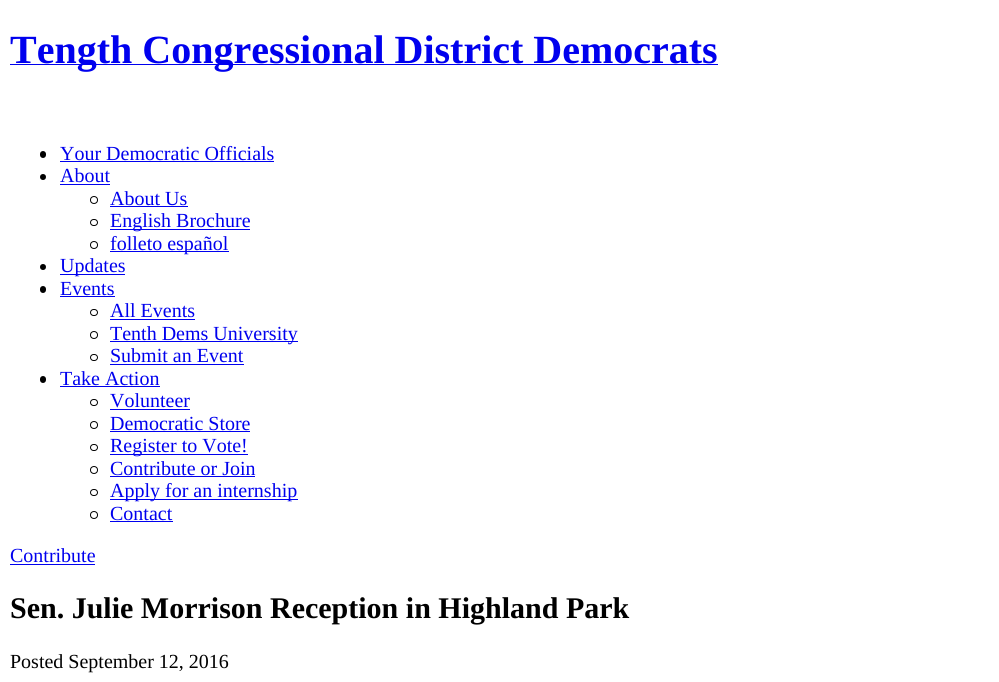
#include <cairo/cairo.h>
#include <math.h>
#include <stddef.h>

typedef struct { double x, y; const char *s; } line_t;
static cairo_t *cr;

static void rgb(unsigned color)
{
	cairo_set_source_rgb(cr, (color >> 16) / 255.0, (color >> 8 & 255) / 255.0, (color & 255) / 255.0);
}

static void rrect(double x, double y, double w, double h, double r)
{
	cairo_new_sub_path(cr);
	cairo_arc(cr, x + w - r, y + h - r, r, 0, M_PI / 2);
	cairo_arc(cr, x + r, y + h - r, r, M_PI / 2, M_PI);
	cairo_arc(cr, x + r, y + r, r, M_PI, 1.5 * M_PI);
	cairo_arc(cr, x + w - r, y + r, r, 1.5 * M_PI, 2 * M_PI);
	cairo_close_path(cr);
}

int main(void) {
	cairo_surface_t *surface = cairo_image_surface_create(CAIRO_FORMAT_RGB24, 999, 682);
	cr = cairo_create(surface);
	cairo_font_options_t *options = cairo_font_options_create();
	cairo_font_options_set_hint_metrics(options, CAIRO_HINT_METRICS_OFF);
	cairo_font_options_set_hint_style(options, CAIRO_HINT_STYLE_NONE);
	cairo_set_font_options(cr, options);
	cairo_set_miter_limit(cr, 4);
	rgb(0xffffff);
	cairo_paint(cr);
	rgb(0x0000ee);
	cairo_rectangle(cr, 10, 64, 708, 1);
	cairo_fill(cr);
	rgb(0x000000);
	rrect(40, 151, 6, 7, 3);
	cairo_fill(cr);
	rgb(0x0000ee);
	cairo_rectangle(cr, 60, 161, 214, 1);
	cairo_fill(cr);
	rgb(0x000000);
	cairo_arc(cr, 43, 177, 3, 0, 2 * M_PI);
	cairo_fill(cr);
	rgb(0x0000ee);
	cairo_rectangle(cr, 60, 184, 50, 1);
	cairo_fill(cr);
	cairo_arc(cr, 94, 200, 3.5, 0, 2 * M_PI);
	rgb(0x000000);
	cairo_set_line_width(cr, 1);
	cairo_stroke(cr);
	rgb(0x0000ee);
	cairo_rectangle(cr, 110, 206, 78, 1);
	cairo_fill(cr);
	rrect(90.5, 219.5, 7, 6, 3);
	rgb(0x000000);
	cairo_stroke(cr);
	rgb(0x0000ee);
	cairo_rectangle(cr, 110, 229, 140, 1);
	cairo_fill(cr);
	cairo_arc(cr, 94, 245, 3.5, 0, 2 * M_PI);
	rgb(0x000000);
	cairo_stroke(cr);
	rgb(0x0000ee);
	cairo_rectangle(cr, 110, 251, 119, 1);
	cairo_fill(cr);
	rgb(0x000000);
	cairo_arc(cr, 43, 267, 3, 0, 2 * M_PI);
	cairo_fill(cr);
	rgb(0x0000ee);
	cairo_rectangle(cr, 60, 274, 65, 1);
	cairo_fill(cr);
	rgb(0x000000);
	rrect(40, 286, 6, 7, 3);
	cairo_fill(cr);
	rgb(0x0000ee);
	cairo_rectangle(cr, 60, 296, 55, 1);
	cairo_fill(cr);
	rrect(90.5, 309.5, 7, 6, 3);
	rgb(0x000000);
	cairo_stroke(cr);
	rgb(0x0000ee);
	cairo_rectangle(cr, 110, 319, 85, 1);
	cairo_fill(cr);
	cairo_arc(cr, 94, 335, 3.5, 0, 2 * M_PI);
	rgb(0x000000);
	cairo_stroke(cr);
	rgb(0x0000ee);
	cairo_rectangle(cr, 110, 341, 188, 1);
	cairo_fill(cr);
	rrect(90.5, 354.5, 7, 6, 3);
	rgb(0x000000);
	cairo_stroke(cr);
	rgb(0x0000ee);
	cairo_rectangle(cr, 110, 364, 134, 1);
	cairo_fill(cr);
	rgb(0x000000);
	rrect(40, 376, 6, 7, 3);
	cairo_fill(cr);
	rgb(0x0000ee);
	cairo_rectangle(cr, 60, 386, 100, 1);
	cairo_fill(cr);
	rrect(90.5, 399.5, 7, 6, 3);
	rgb(0x000000);
	cairo_stroke(cr);
	rgb(0x0000ee);
	cairo_rectangle(cr, 110, 409, 80, 1);
	cairo_fill(cr);
	cairo_arc(cr, 94, 425, 3.5, 0, 2 * M_PI);
	rgb(0x000000);
	cairo_stroke(cr);
	rgb(0x0000ee);
	cairo_rectangle(cr, 110, 431, 140, 1);
	cairo_fill(cr);
	rrect(90.5, 444.5, 7, 6, 3);
	rgb(0x000000);
	cairo_stroke(cr);
	rgb(0x0000ee);
	cairo_rectangle(cr, 110, 454, 138, 1);
	cairo_fill(cr);
	cairo_arc(cr, 94, 470, 3.5, 0, 2 * M_PI);
	rgb(0x000000);
	cairo_stroke(cr);
	rgb(0x0000ee);
	cairo_rectangle(cr, 110, 476, 145, 1);
	cairo_fill(cr);
	rrect(90.5, 489.5, 7, 6, 3);
	rgb(0x000000);
	cairo_stroke(cr);
	rgb(0x0000ee);
	cairo_rectangle(cr, 110, 499, 188, 1);
	cairo_fill(cr);
	cairo_arc(cr, 94, 515, 3.5, 0, 2 * M_PI);
	rgb(0x000000);
	cairo_stroke(cr);
	rgb(0x0000ee);
	cairo_rectangle(cr, 110, 521, 63, 1);
	cairo_fill(cr);
	cairo_rectangle(cr, 10, 564, 85, 1);
	cairo_fill(cr);
	cairo_select_font_face(cr, "Liberation Serif", CAIRO_FONT_SLANT_NORMAL, CAIRO_FONT_WEIGHT_BOLD);
	cairo_set_font_size(cr, 40);
	cairo_move_to(cr, 10, 63);
	cairo_show_text(cr, "Tength Congressional District Democrats");
	cairo_select_font_face(cr, "Liberation Serif", CAIRO_FONT_SLANT_NORMAL, CAIRO_FONT_WEIGHT_NORMAL);
	cairo_set_font_size(cr, 20);
	{
		static const line_t items[] = {
			{60, 160, "Your Democratic Officials"},
			{60, 182, "About"},
			{110, 205, "About Us"},
			{110, 227, "English Brochure"},
			{110, 250, "folleto español"},
			{60, 272, "Updates"},
			{60, 295, "Events"},
			{110, 317, "All Events"},
			{110, 340, "Tenth Dems University"},
			{110, 362, "Submit an Event"},
			{60, 385, "Take Action"},
			{110, 407, "Volunteer"},
			{110, 430, "Democratic Store"},
			{110, 452, "Register to Vote!"},
			{110, 475, "Contribute or Join"},
			{110, 497, "Apply for an internship"},
			{110, 520, "Contact"},
			{10, 562, "Contribute"},
		};
		for (size_t i = 0; i < sizeof items / sizeof *items; i++) {
			cairo_move_to(cr, items[i].x, items[i].y);
			cairo_show_text(cr, items[i].s);
		}
	}
	cairo_select_font_face(cr, "Liberation Serif", CAIRO_FONT_SLANT_NORMAL, CAIRO_FONT_WEIGHT_BOLD);
	cairo_set_font_size(cr, 30);
	rgb(0x000000);
	cairo_move_to(cr, 10, 618);
	cairo_show_text(cr, "Sen. Julie Morrison Reception in Highland Park");
	cairo_select_font_face(cr, "Liberation Serif", CAIRO_FONT_SLANT_NORMAL, CAIRO_FONT_WEIGHT_NORMAL);
	cairo_set_font_size(cr, 20);
	cairo_move_to(cr, 10, 668);
	cairo_show_text(cr, "Posted September 12, 2016");
	cairo_surface_write_to_png(surface, "page.png");
	cairo_font_options_destroy(options);
	cairo_destroy(cr);
	cairo_surface_destroy(surface);
	return 0;
}
